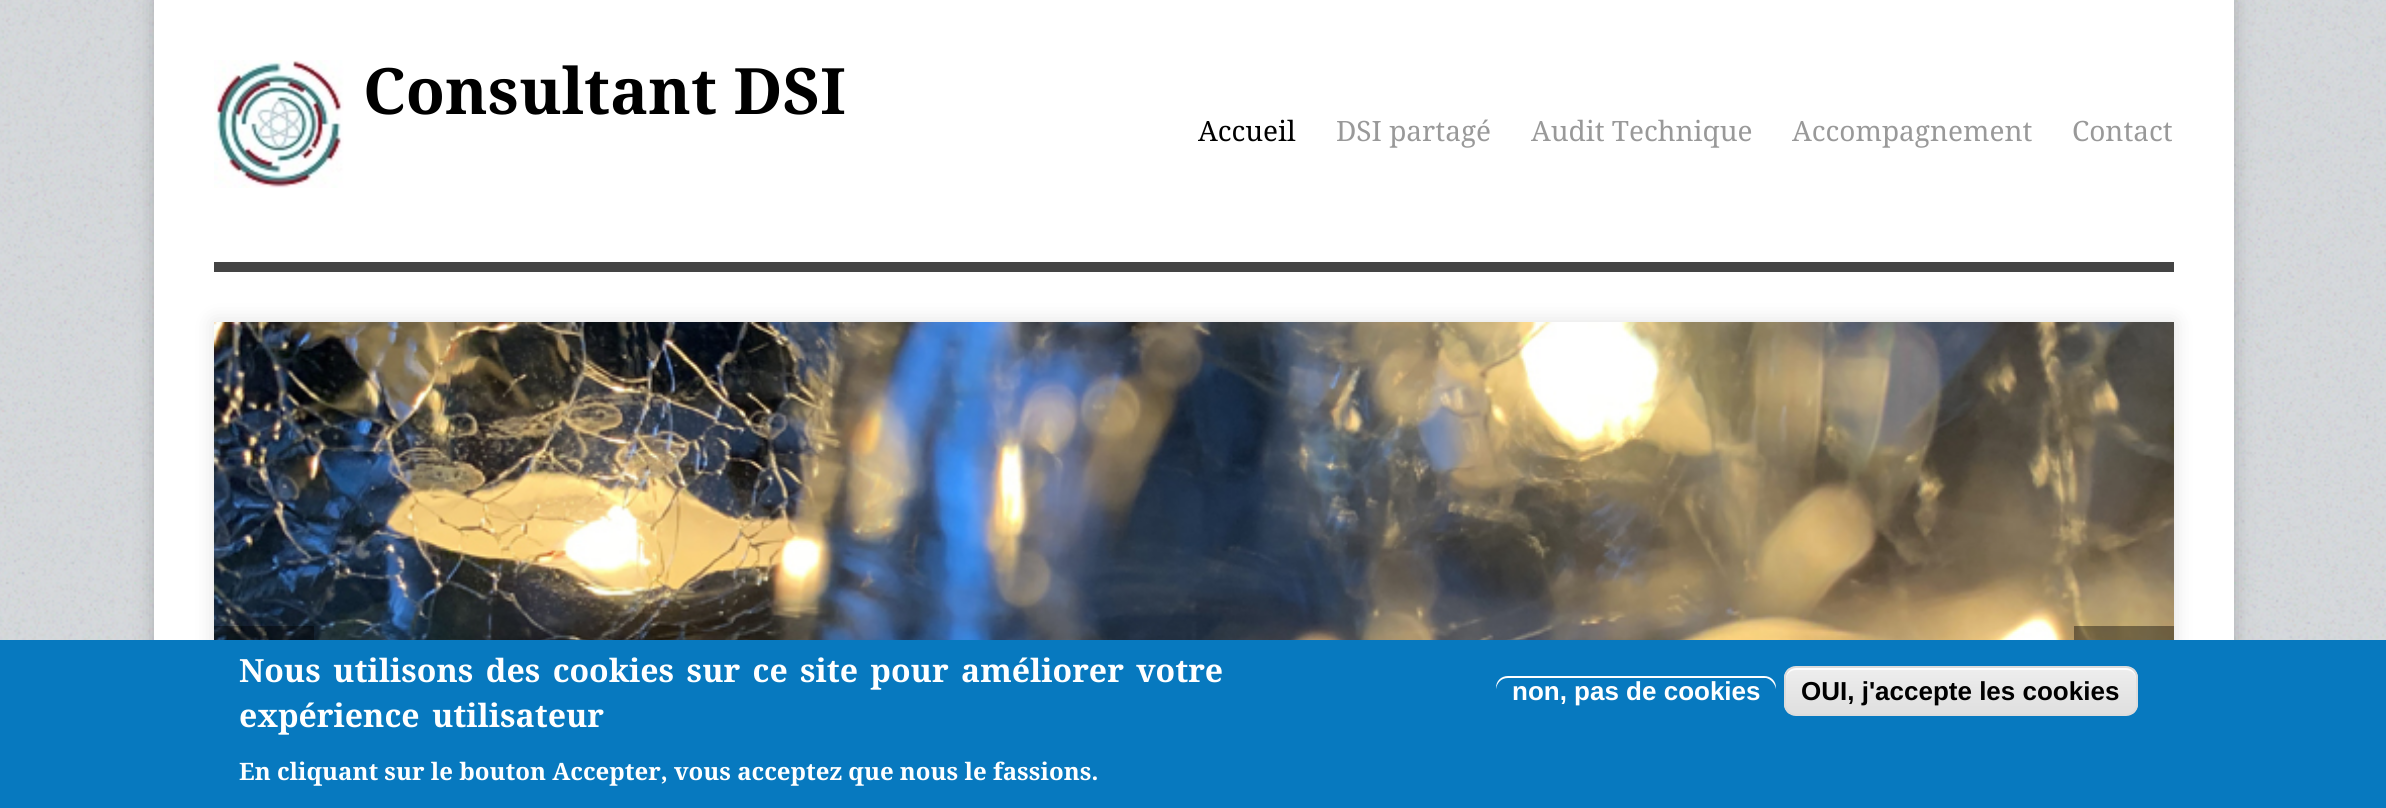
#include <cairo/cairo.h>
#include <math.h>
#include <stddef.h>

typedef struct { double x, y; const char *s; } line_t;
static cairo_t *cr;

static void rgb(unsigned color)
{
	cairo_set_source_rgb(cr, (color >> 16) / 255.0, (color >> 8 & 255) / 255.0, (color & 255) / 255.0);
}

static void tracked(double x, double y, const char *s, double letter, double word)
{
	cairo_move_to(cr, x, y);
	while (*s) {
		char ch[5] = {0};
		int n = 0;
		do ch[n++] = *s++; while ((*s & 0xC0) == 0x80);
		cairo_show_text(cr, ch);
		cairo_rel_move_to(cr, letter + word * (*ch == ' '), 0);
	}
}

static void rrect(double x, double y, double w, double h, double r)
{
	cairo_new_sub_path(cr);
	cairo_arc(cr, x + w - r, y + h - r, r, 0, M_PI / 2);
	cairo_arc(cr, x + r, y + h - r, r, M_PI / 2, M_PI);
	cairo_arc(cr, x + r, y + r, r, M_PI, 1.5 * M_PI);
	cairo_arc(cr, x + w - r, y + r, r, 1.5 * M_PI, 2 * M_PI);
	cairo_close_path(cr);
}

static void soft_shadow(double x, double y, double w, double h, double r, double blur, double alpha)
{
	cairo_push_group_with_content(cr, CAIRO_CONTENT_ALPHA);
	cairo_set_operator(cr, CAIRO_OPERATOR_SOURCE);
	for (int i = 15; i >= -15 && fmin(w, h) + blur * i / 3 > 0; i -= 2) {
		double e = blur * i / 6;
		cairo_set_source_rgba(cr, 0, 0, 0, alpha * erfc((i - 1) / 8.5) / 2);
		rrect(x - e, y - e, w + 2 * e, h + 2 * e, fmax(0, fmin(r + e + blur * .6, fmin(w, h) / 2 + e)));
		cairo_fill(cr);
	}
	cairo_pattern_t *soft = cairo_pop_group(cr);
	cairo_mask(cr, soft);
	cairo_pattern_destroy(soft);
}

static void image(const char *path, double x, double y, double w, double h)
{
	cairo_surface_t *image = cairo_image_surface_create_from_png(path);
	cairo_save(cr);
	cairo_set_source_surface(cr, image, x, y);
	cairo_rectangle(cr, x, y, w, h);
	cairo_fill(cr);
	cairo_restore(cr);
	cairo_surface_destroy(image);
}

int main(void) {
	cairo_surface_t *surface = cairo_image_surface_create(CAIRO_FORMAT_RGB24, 2386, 808);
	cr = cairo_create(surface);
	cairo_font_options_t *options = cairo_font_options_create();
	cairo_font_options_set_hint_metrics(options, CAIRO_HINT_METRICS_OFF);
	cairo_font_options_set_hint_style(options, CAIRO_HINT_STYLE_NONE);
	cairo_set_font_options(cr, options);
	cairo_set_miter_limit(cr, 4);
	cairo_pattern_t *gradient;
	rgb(0xffffff);
	cairo_paint(cr);
	image("img/1.png", 0, 0, 2386, 640);
	rgb(0x000000);
	soft_shadow(154, 0, 2080, 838, 0, 10, 0.2);
	rgb(0xffffff);
	cairo_rectangle(cr, 154, 0, 2080, 640);
	cairo_fill(cr);
	rgb(0x444444);
	cairo_rectangle(cr, 214, 262, 1960, 10);
	cairo_fill(cr);
	image("img/2.png", 214, 60, 130, 128);
	rgb(0x999999);
	soft_shadow(214, 322, 1960, 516, 0, 10, 0.3);
	image("img/3.png", 214, 322, 1960, 318);
	cairo_set_source_rgba(cr, 0, 0, 0, 0.4);
	cairo_rectangle(cr, 214, 626, 100, 14);
	cairo_fill(cr);
	cairo_rectangle(cr, 2074, 626, 100, 14);
	cairo_fill(cr);
	rgb(0x0779bf);
	cairo_rectangle(cr, 0, 640, 2386, 168);
	cairo_fill(cr);
	rgb(0xffffff);
	cairo_new_path(cr);
	cairo_move_to(cr, 1508, 678);
	cairo_line_to(cr, 1766, 678);
	cairo_curve_to(cr, 1771, 679, 1775, 684, 1776, 689);
	cairo_line_to(cr, 1776, 688);
	cairo_curve_to(cr, 1776, 681, 1771, 676, 1764, 676);
	cairo_line_to(cr, 1508, 676);
	cairo_curve_to(cr, 1501, 676, 1496, 681, 1496, 688);
	cairo_line_to(cr, 1496, 689);
	cairo_curve_to(cr, 1497, 683, 1501, 678, 1508, 678);
	cairo_close_path(cr);
	cairo_fill(cr);
	cairo_save(cr);
	rrect(1784, 666, 354, 50, 12);
	cairo_clip(cr);
	gradient = cairo_pattern_create_linear(1961, 668, 1961, 714);
	cairo_pattern_add_color_stop_rgba(gradient, 0.05, 0.929, 0.929, 0.929, 1);
	cairo_pattern_add_color_stop_rgba(gradient, 1, 0.875, 0.875, 0.875, 1);
	cairo_set_source(cr, gradient);
	cairo_pattern_destroy(gradient);
	cairo_rectangle(cr, 1784, 668, 354, 46);
	cairo_fill(cr);
	cairo_restore(cr);
	cairo_new_path(cr);
	cairo_move_to(cr, 1796, 670);
	cairo_line_to(cr, 2126, 670);
	cairo_curve_to(cr, 2132, 670, 2136, 674, 2136, 680);
	cairo_line_to(cr, 2136, 678);
	cairo_curve_to(cr, 2136, 672, 2132, 668, 2126, 668);
	cairo_line_to(cr, 1796, 668);
	cairo_curve_to(cr, 1790, 668, 1786, 672, 1786, 678);
	cairo_line_to(cr, 1786, 680);
	cairo_curve_to(cr, 1786, 674, 1790, 670, 1796, 670);
	cairo_close_path(cr);
	cairo_fill(cr);
	rrect(1785, 667, 352, 48, 11);
	rgb(0xdcdcdc);
	cairo_stroke(cr);
	cairo_select_font_face(cr, "Droid Serif", CAIRO_FONT_SLANT_NORMAL, CAIRO_FONT_WEIGHT_BOLD);
	cairo_set_font_size(cr, 64);
	rgb(0x000000);
	cairo_move_to(cr, 363, 114);
	cairo_show_text(cr, "Consultant DSI");
	cairo_select_font_face(cr, "Droid Serif", CAIRO_FONT_SLANT_NORMAL, CAIRO_FONT_WEIGHT_NORMAL);
	cairo_set_font_size(cr, 28);
	cairo_move_to(cr, 1198, 141);
	cairo_show_text(cr, "Accueil");
	rgb(0x999999);
	{
		static const line_t items[] = {
			{1336, 141, "DSI partagé"},
			{1531, 141, "Audit Technique"},
			{1792, 141, "Accompagnement"},
			{2072, 141, "Contact"},
		};
		for (size_t i = 0; i < sizeof items / sizeof *items; i++) {
			cairo_move_to(cr, items[i].x, items[i].y);
			cairo_show_text(cr, items[i].s);
		}
	}
	cairo_select_font_face(cr, "Droid Serif", CAIRO_FONT_SLANT_NORMAL, CAIRO_FONT_WEIGHT_BOLD);
	cairo_set_font_size(cr, 32);
	rgb(0xffffff);
	tracked(239, 682, "Nous utilisons des cookies sur ce site pour améliorer votre", 0, 4);
	tracked(239, 727, "expérience utilisateur", 0, 4);
	cairo_set_font_size(cr, 24);
	cairo_move_to(cr, 239, 780);
	cairo_show_text(cr, "En cliquant sur le bouton Accepter, vous acceptez que nous le fassions.");
	cairo_select_font_face(cr, "Liberation Sans", CAIRO_FONT_SLANT_NORMAL, CAIRO_FONT_WEIGHT_BOLD);
	cairo_set_font_size(cr, 26);
	cairo_move_to(cr, 1512, 700);
	cairo_show_text(cr, "non, pas de cookies");
	rgb(0x000000);
	cairo_move_to(cr, 1801, 700);
	cairo_show_text(cr, "OUI, j'accepte les cookies");
	cairo_surface_write_to_png(surface, "page.png");
	cairo_font_options_destroy(options);
	cairo_destroy(cr);
	cairo_surface_destroy(surface);
	return 0;
}
